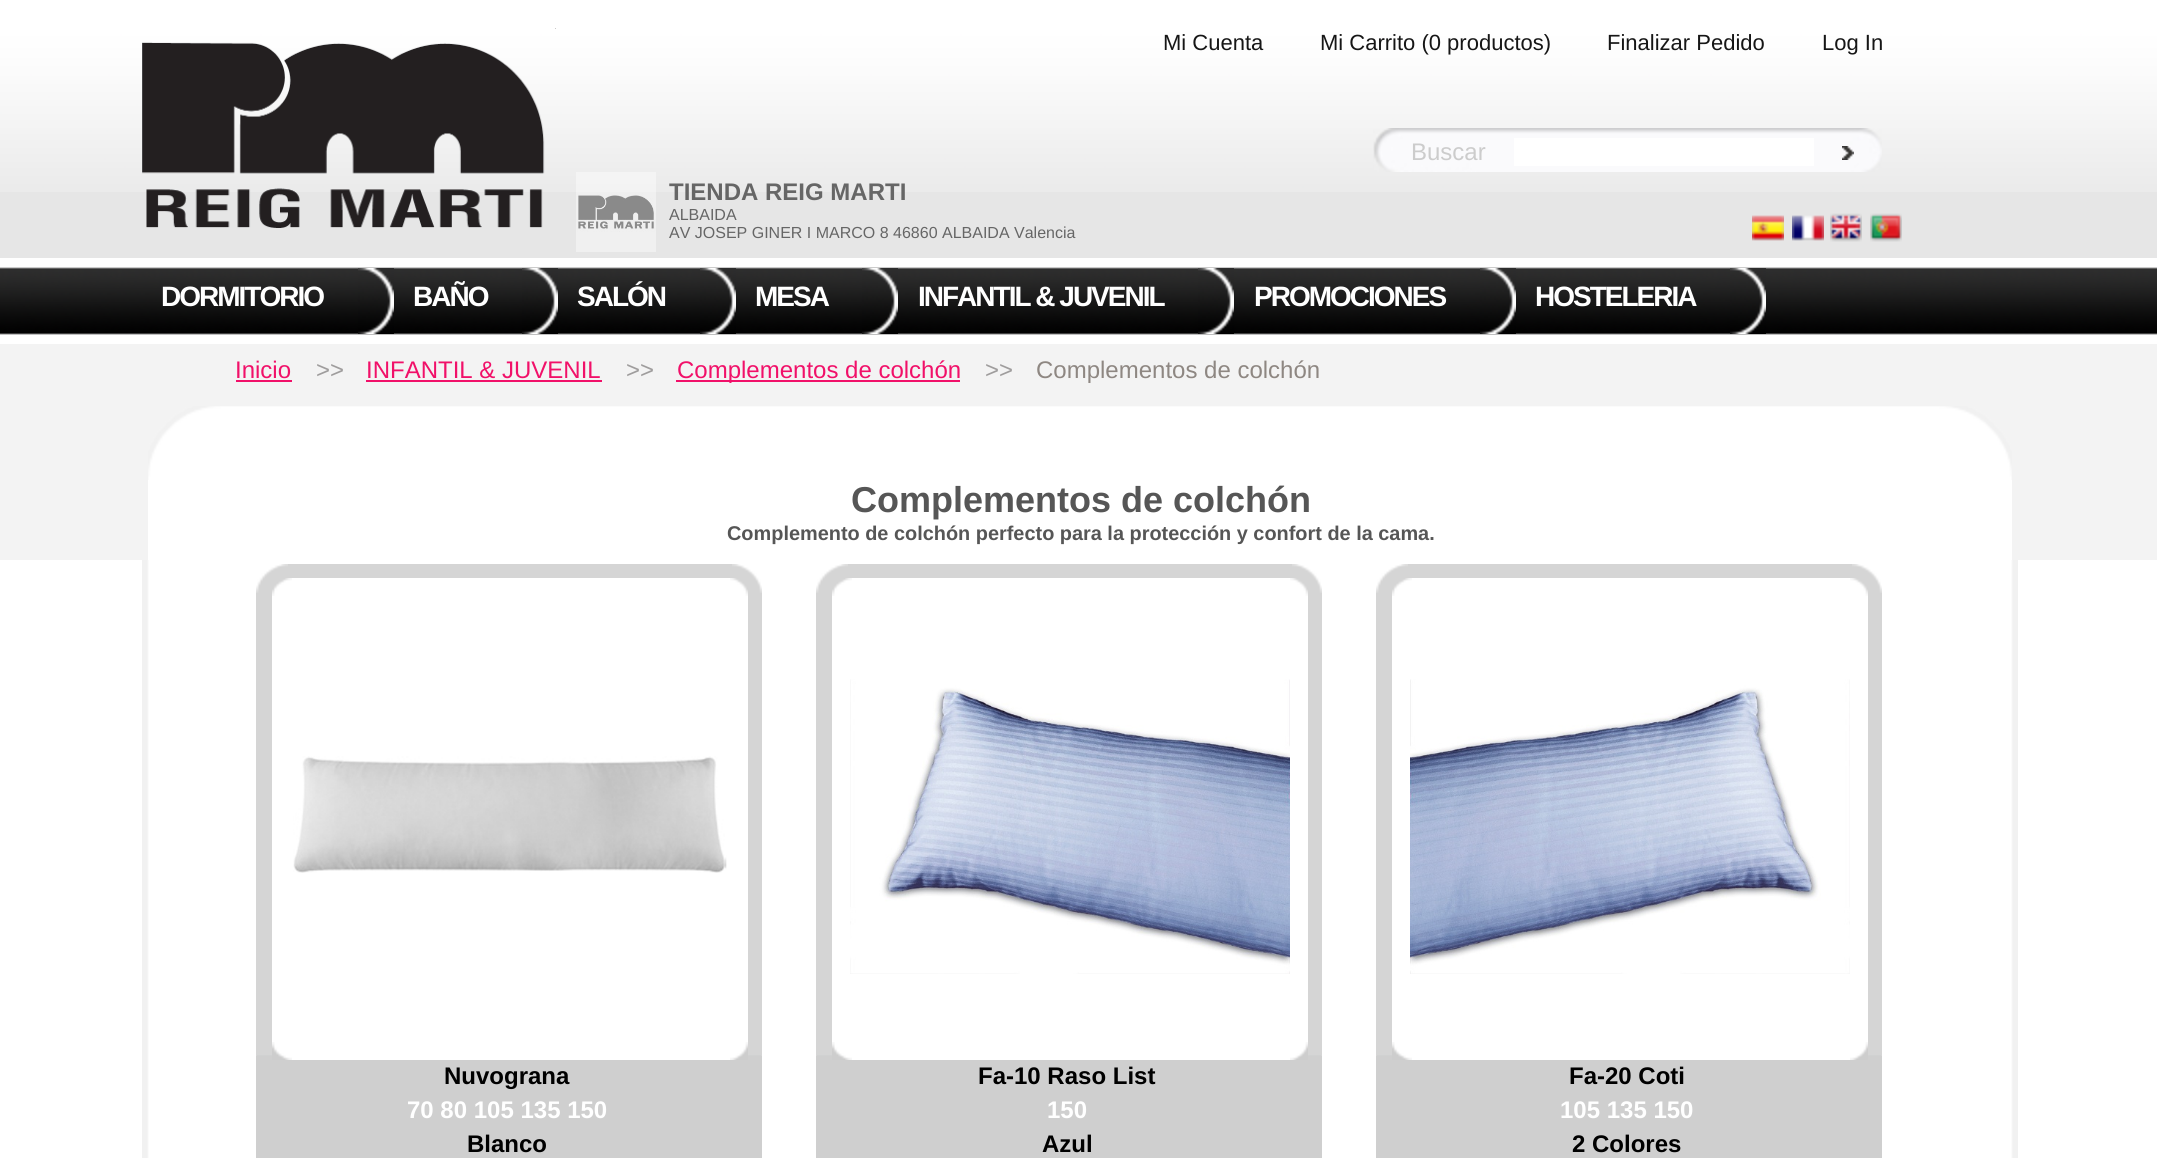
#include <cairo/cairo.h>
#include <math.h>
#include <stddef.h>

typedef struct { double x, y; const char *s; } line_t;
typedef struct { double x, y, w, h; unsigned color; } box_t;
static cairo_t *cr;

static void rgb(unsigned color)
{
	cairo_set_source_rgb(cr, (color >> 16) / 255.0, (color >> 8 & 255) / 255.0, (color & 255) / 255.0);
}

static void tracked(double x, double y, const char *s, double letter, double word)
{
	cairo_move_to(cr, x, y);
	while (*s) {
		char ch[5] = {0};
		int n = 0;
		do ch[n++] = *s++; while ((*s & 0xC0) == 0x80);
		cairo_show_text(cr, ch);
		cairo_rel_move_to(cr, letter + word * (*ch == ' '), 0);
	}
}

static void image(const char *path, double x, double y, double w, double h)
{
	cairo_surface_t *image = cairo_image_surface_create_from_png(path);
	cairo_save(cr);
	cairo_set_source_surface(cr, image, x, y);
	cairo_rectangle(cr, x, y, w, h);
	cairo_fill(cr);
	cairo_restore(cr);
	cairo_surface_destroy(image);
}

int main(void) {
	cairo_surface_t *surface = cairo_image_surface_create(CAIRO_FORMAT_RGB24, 2157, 1158);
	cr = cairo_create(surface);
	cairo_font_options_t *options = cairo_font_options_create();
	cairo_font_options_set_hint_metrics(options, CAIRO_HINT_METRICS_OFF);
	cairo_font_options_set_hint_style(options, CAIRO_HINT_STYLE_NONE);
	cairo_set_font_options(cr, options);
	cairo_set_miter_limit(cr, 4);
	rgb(0xffffff);
	cairo_paint(cr);
	rgb(0xe6e6e6);
	cairo_rectangle(cr, 0, 192, 2157, 66);
	cairo_fill(cr);
	image("img/1.png", 0, 28, 2157, 164);
	image("img/2.png", 142, 28, 414, 200);
	image("img/3.png", 1373, 128, 509, 44);
	rgb(0xffffff);
	cairo_rectangle(cr, 1514, 138, 300, 28);
	cairo_fill(cr);
	image("img/4.png", 1842, 146, 12, 14);
	image("img/5.png", 1752, 215, 32, 26);
	image("img/6.png", 1792, 215, 32, 26);
	image("img/7.png", 1830, 213, 32, 29);
	image("img/8.png", 1870, 213, 32, 29);
	image("img/9.png", 576, 172, 80, 80);
	image("img/10.png", 0, 258, 2157, 86);
	image("img/11.png", 358, 268, 36, 66);
	image("img/11.png", 522, 268, 36, 66);
	image("img/11.png", 700, 268, 36, 66);
	image("img/11.png", 862, 268, 36, 66);
	image("img/11.png", 1198, 268, 36, 66);
	image("img/11.png", 1480, 268, 36, 66);
	image("img/11.png", 1730, 268, 36, 66);
	{
		static const box_t items[] = {
			{0, 344, 2157, 216, 0xf3f3f3},
			{236, 380, 56, 2, 0xf11069},
			{366, 380, 236, 2, 0xf11069},
			{676, 380, 284, 2, 0xf11069},
		};
		for (size_t i = 0; i < sizeof items / sizeof *items; i++) {
			rgb(items[i].color);
			cairo_rectangle(cr, items[i].x, items[i].y, items[i].w, items[i].h);
			cairo_fill(cr);
		}
	}
	image("img/12.png", 148, 406, 1864, 74);
	rgb(0xffffff);
	cairo_rectangle(cr, 148, 480, 1864, 80);
	cairo_fill(cr);
	image("img/13.png", 142, 560, 1876, 598);
	rgb(0xd5d5d5);
	cairo_rectangle(cr, 256, 564, 506, 492);
	cairo_fill(cr);
	rgb(0xcfcfcf);
	cairo_rectangle(cr, 256, 1056, 506, 102);
	cairo_fill(cr);
	image("img/14.png", 256, 564, 32, 29);
	image("img/15.png", 732, 564, 30, 29);
	{
		static const box_t items[] = {
			{257, 1055, 15, 1, 0xd0d1d1},
			{748, 1055, 13, 1, 0xd0d1d1},
			{272, 578, 476, 482, 0xffffff},
		};
		for (size_t i = 0; i < sizeof items / sizeof *items; i++) {
			rgb(items[i].color);
			cairo_rectangle(cr, items[i].x, items[i].y, items[i].w, items[i].h);
			cairo_fill(cr);
		}
	}
	image("img/16.png", 272, 578, 20, 18);
	image("img/17.png", 730, 578, 18, 18);
	image("img/18.png", 272, 1042, 20, 18);
	image("img/19.png", 730, 1042, 18, 18);
	image("img/20.png", 293, 756, 434, 117);
	rgb(0xd5d5d5);
	cairo_rectangle(cr, 816, 564, 506, 492);
	cairo_fill(cr);
	rgb(0xcfcfcf);
	cairo_rectangle(cr, 816, 1056, 506, 102);
	cairo_fill(cr);
	image("img/14.png", 816, 564, 32, 29);
	image("img/15.png", 1292, 564, 30, 29);
	{
		static const box_t items[] = {
			{817, 1055, 15, 1, 0xd0d1d1},
			{1308, 1055, 13, 1, 0xd0d1d1},
			{832, 578, 476, 482, 0xffffff},
		};
		for (size_t i = 0; i < sizeof items / sizeof *items; i++) {
			rgb(items[i].color);
			cairo_rectangle(cr, items[i].x, items[i].y, items[i].w, items[i].h);
			cairo_fill(cr);
		}
	}
	image("img/21.png", 832, 578, 20, 18);
	image("img/17.png", 1290, 578, 18, 18);
	image("img/22.png", 832, 1042, 20, 18);
	image("img/19.png", 1290, 1042, 18, 18);
	image("img/23.png", 850, 679, 440, 295);
	rgb(0xd5d5d5);
	cairo_rectangle(cr, 1376, 564, 506, 492);
	cairo_fill(cr);
	rgb(0xcfcfcf);
	cairo_rectangle(cr, 1376, 1056, 506, 102);
	cairo_fill(cr);
	image("img/14.png", 1376, 564, 32, 29);
	image("img/15.png", 1852, 564, 30, 29);
	{
		static const box_t items[] = {
			{1377, 1055, 15, 1, 0xd0d1d1},
			{1868, 1055, 13, 1, 0xd0d1d1},
			{1392, 578, 476, 482, 0xffffff},
		};
		for (size_t i = 0; i < sizeof items / sizeof *items; i++) {
			rgb(items[i].color);
			cairo_rectangle(cr, items[i].x, items[i].y, items[i].w, items[i].h);
			cairo_fill(cr);
		}
	}
	image("img/16.png", 1392, 578, 20, 18);
	image("img/17.png", 1850, 578, 18, 18);
	image("img/18.png", 1392, 1042, 20, 18);
	image("img/19.png", 1850, 1042, 18, 18);
	image("img/24.png", 1410, 679, 440, 295);
	cairo_select_font_face(cr, "Liberation Sans", CAIRO_FONT_SLANT_NORMAL, CAIRO_FONT_WEIGHT_NORMAL);
	cairo_set_font_size(cr, 22);
	rgb(0x161616);
	{
		static const line_t items[] = {
			{1163, 50, "Mi Cuenta"},
			{1320, 50, "Mi Carrito (0 productos)"},
			{1607, 50, "Finalizar Pedido"},
			{1822, 50, "Log In"},
		};
		for (size_t i = 0; i < sizeof items / sizeof *items; i++) {
			cairo_move_to(cr, items[i].x, items[i].y);
			cairo_show_text(cr, items[i].s);
		}
	}
	cairo_set_font_size(cr, 24);
	rgb(0xcccccc);
	cairo_move_to(cr, 1411, 160);
	cairo_show_text(cr, "Buscar");
	cairo_select_font_face(cr, "Liberation Sans", CAIRO_FONT_SLANT_NORMAL, CAIRO_FONT_WEIGHT_BOLD);
	rgb(0x666666);
	cairo_move_to(cr, 669, 200);
	cairo_show_text(cr, "TIENDA REIG MARTI");
	cairo_select_font_face(cr, "Liberation Sans", CAIRO_FONT_SLANT_NORMAL, CAIRO_FONT_WEIGHT_NORMAL);
	cairo_set_font_size(cr, 16);
	cairo_move_to(cr, 669, 220);
	cairo_show_text(cr, "ALBAIDA");
	cairo_move_to(cr, 669, 238);
	cairo_show_text(cr, "AV JOSEP GINER I MARCO 8 46860 ALBAIDA Valencia");
	cairo_select_font_face(cr, "Liberation Sans", CAIRO_FONT_SLANT_NORMAL, CAIRO_FONT_WEIGHT_BOLD);
	cairo_set_font_size(cr, 28);
	rgb(0xffffff);
	{
		static const line_t items[] = {
			{161, 306, "DORMITORIO"},
			{413, 306, "BAÑO"},
			{577, 306, "SALÓN"},
			{755, 306, "MESA"},
			{918, 306, "INFANTIL & JUVENIL"},
			{1254, 306, "PROMOCIONES"},
			{1535, 306, "HOSTELERIA"},
		};
		for (size_t i = 0; i < sizeof items / sizeof *items; i++) {
			tracked(items[i].x, items[i].y, items[i].s, -2, 0);
		}
	}
	cairo_select_font_face(cr, "Liberation Sans", CAIRO_FONT_SLANT_NORMAL, CAIRO_FONT_WEIGHT_NORMAL);
	cairo_set_font_size(cr, 24);
	rgb(0xf11069);
	cairo_move_to(cr, 235, 378);
	cairo_show_text(cr, "Inicio");
	rgb(0x9f9d9d);
	cairo_move_to(cr, 316, 378);
	cairo_show_text(cr, ">>");
	rgb(0xf11069);
	cairo_move_to(cr, 366, 378);
	cairo_show_text(cr, "INFANTIL & JUVENIL");
	rgb(0x9f9d9d);
	cairo_move_to(cr, 626, 378);
	cairo_show_text(cr, ">>");
	rgb(0xf11069);
	cairo_move_to(cr, 677, 378);
	cairo_show_text(cr, "Complementos de colchón");
	rgb(0x9f9d9d);
	cairo_move_to(cr, 985, 378);
	cairo_show_text(cr, ">>");
	rgb(0x8e8782);
	cairo_move_to(cr, 1036, 378);
	cairo_show_text(cr, "Complementos de colchón");
	cairo_select_font_face(cr, "Liberation Sans", CAIRO_FONT_SLANT_NORMAL, CAIRO_FONT_WEIGHT_BOLD);
	cairo_set_font_size(cr, 36);
	rgb(0x565656);
	cairo_move_to(cr, 851, 512);
	cairo_show_text(cr, "Complementos de colchón");
	cairo_set_font_size(cr, 19.9);
	cairo_move_to(cr, 727, 540);
	cairo_show_text(cr, "Complemento de colchón perfecto para la protección y confort de la cama.");
	cairo_set_font_size(cr, 24);
	rgb(0x000000);
	cairo_move_to(cr, 444, 1084);
	cairo_show_text(cr, "Nuvograna");
	rgb(0xffffff);
	cairo_move_to(cr, 407, 1118);
	cairo_show_text(cr, "70 80 105 135 150");
	rgb(0x000000);
	cairo_move_to(cr, 467, 1152);
	cairo_show_text(cr, "Blanco");
	cairo_move_to(cr, 978, 1084);
	cairo_show_text(cr, "Fa-10 Raso List");
	rgb(0xffffff);
	cairo_move_to(cr, 1047, 1118);
	cairo_show_text(cr, "150");
	rgb(0x000000);
	cairo_move_to(cr, 1042, 1152);
	cairo_show_text(cr, "Azul");
	cairo_move_to(cr, 1569, 1084);
	cairo_show_text(cr, "Fa-20 Coti");
	rgb(0xffffff);
	cairo_move_to(cr, 1560, 1118);
	cairo_show_text(cr, "105 135 150");
	rgb(0x000000);
	cairo_move_to(cr, 1572, 1152);
	cairo_show_text(cr, "2 Colores");
	cairo_surface_write_to_png(surface, "page.png");
	cairo_font_options_destroy(options);
	cairo_destroy(cr);
	cairo_surface_destroy(surface);
	return 0;
}
